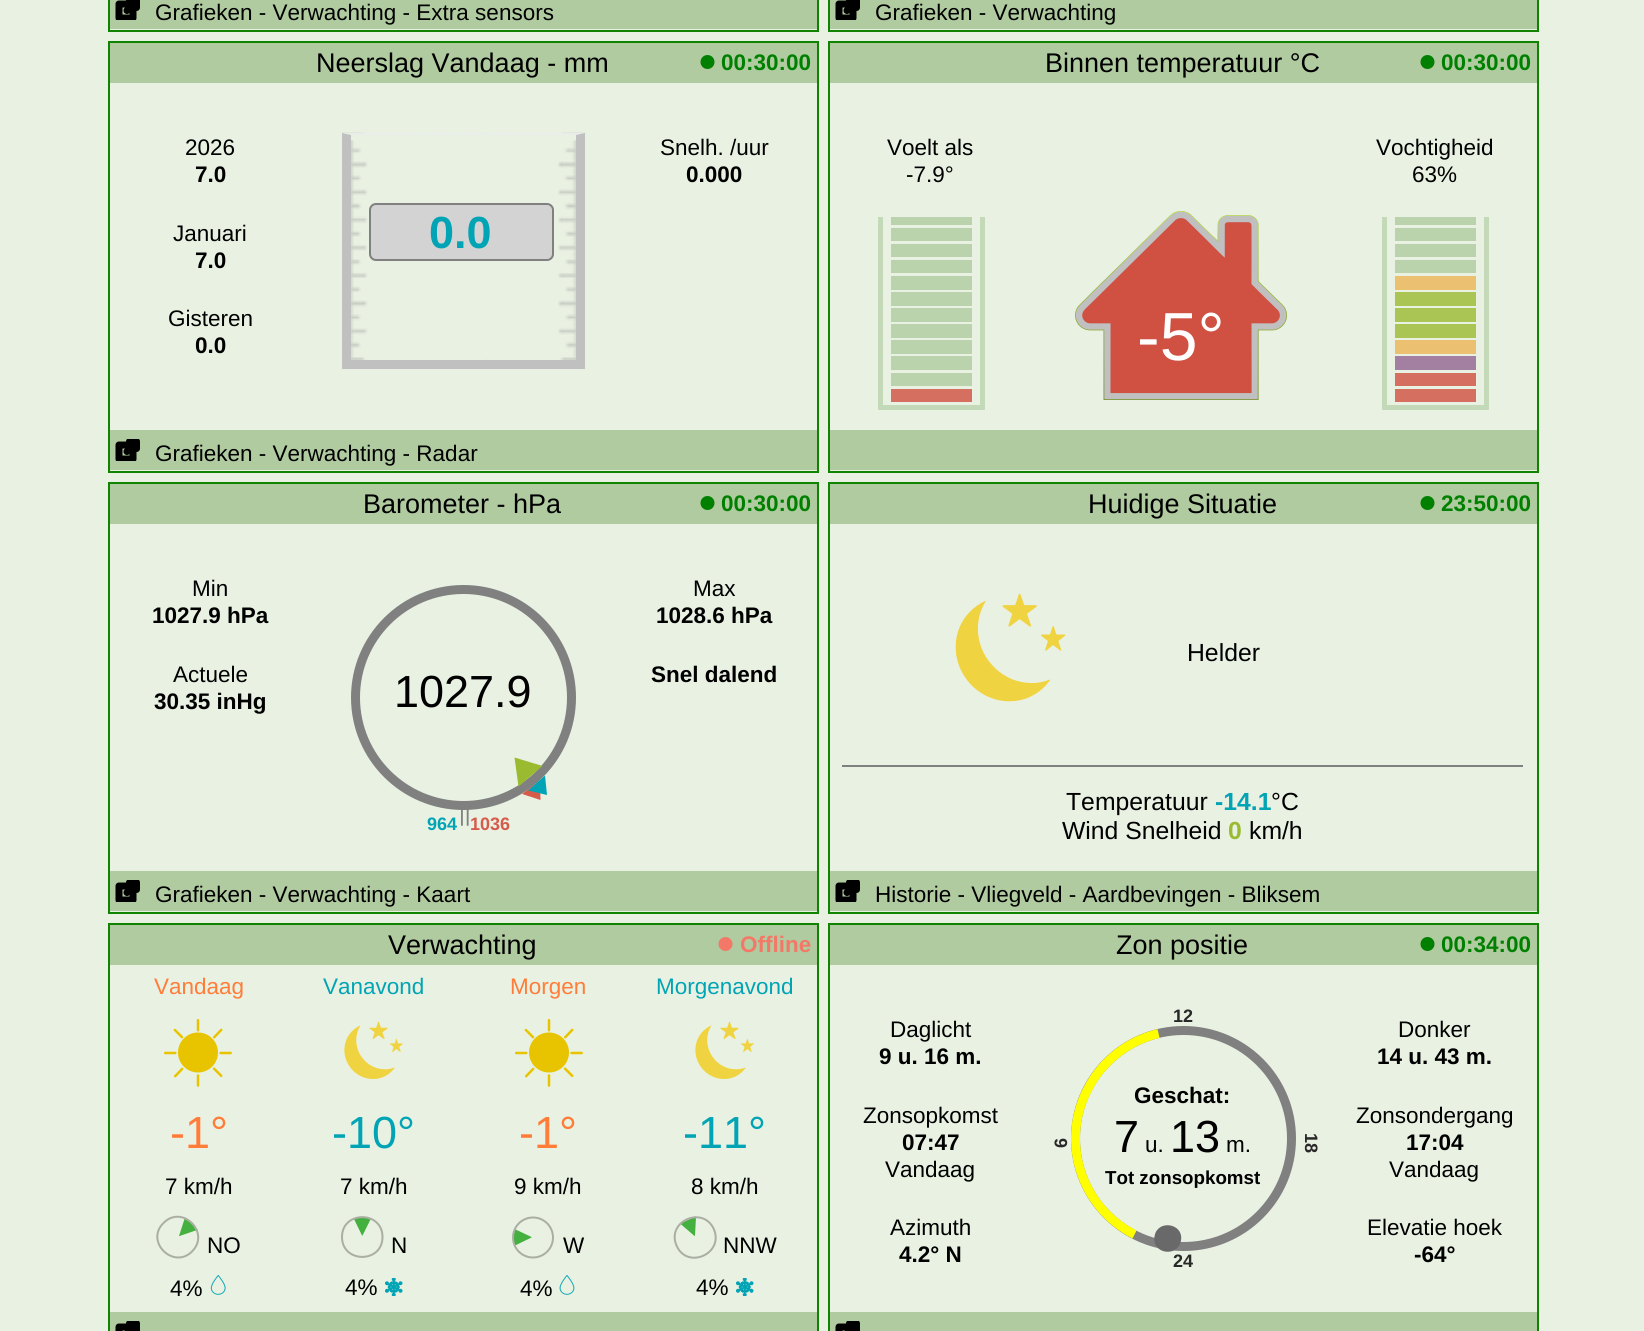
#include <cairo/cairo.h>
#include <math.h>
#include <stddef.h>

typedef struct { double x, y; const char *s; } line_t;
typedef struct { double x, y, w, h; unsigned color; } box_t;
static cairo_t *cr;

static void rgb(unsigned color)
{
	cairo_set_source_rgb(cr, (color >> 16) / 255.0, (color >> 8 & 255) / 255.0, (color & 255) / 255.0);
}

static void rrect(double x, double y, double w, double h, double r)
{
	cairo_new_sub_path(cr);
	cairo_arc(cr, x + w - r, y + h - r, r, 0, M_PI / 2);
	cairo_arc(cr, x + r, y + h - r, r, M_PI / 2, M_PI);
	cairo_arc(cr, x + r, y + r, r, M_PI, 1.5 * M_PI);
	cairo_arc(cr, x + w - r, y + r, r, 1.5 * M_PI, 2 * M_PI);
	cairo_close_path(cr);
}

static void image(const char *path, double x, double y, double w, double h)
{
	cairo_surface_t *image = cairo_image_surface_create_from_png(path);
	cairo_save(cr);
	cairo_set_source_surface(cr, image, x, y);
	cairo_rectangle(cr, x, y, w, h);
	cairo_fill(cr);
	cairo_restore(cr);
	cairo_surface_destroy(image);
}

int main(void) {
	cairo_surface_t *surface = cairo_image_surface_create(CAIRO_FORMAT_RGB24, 1644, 1331);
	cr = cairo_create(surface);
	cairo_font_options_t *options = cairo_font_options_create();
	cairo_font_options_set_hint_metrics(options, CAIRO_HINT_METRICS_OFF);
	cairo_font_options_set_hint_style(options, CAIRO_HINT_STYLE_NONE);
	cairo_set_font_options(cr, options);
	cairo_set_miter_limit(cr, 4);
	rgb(0xe9f1e2);
	cairo_paint(cr);
	cairo_rectangle(cr, 109, -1, 709, 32);
	rgb(0x108400);
	cairo_stroke(cr);
	rgb(0xb0cba0);
	cairo_rectangle(cr, 110, 0, 707, 29);
	cairo_fill(cr);
	cairo_save(cr);
	cairo_rectangle(cr, 115, 0, 27, 20);
	cairo_clip(cr);
	cairo_new_path(cr);
	cairo_move_to(cr, 127, 4);
	cairo_line_to(cr, 119, 4);
	cairo_line_to(cr, 119, 18);
	cairo_line_to(cr, 133, 18);
	cairo_line_to(cr, 133, 10.5);
	cairo_move_to(cr, 129.5, 0.5);
	cairo_line_to(cr, 136.5, 0.5);
	cairo_line_to(cr, 136.5, 7.5);
	cairo_move_to(cr, 136.5, 0.5);
	cairo_line_to(cr, 127, 10.5);
	rgb(0x000000);
	cairo_set_line_width(cr, 7);
	cairo_set_line_cap(cr, CAIRO_LINE_CAP_ROUND);
	cairo_set_line_join(cr, CAIRO_LINE_JOIN_ROUND);
	cairo_stroke(cr);
	cairo_restore(cr);
	cairo_rectangle(cr, 829, -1, 709, 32);
	rgb(0x108400);
	cairo_stroke(cr);
	rgb(0xb0cba0);
	cairo_rectangle(cr, 830, 0, 707, 29);
	cairo_fill(cr);
	cairo_save(cr);
	cairo_rectangle(cr, 835, 0, 27, 20);
	cairo_clip(cr);
	cairo_new_path(cr);
	cairo_move_to(cr, 847, 4);
	cairo_line_to(cr, 839, 4);
	cairo_line_to(cr, 839, 18);
	cairo_line_to(cr, 853, 18);
	cairo_line_to(cr, 853, 10.5);
	cairo_move_to(cr, 849.5, 0.5);
	cairo_line_to(cr, 856.5, 0.5);
	cairo_line_to(cr, 856.5, 7.5);
	cairo_move_to(cr, 856.5, 0.5);
	cairo_line_to(cr, 847, 10.5);
	rgb(0x000000);
	cairo_set_line_width(cr, 7);
	cairo_set_line_cap(cr, CAIRO_LINE_CAP_ROUND);
	cairo_set_line_join(cr, CAIRO_LINE_JOIN_ROUND);
	cairo_stroke(cr);
	cairo_restore(cr);
	cairo_rectangle(cr, 109, 42, 709, 430);
	rgb(0x108400);
	cairo_stroke(cr);
	rgb(0xb0cba0);
	cairo_rectangle(cr, 110, 43, 707, 40);
	cairo_fill(cr);
	rgb(0x008000);
	cairo_arc(cr, 707.5, 62, 7, 0, 2 * M_PI);
	cairo_fill(cr);
	image("img/1.png", 342, 132, 243, 228);
	cairo_new_path(cr);
	cairo_move_to(cr, 342, 134);
	cairo_line_to(cr, 585, 134);
	rgb(0xe9ebf1);
	cairo_set_line_width(cr, 2.2);
	cairo_set_dash(cr, (double[]){2.25, 2.25}, 2, 0);
	cairo_stroke(cr);
	rgb(0xc0c0c0);
	cairo_new_path(cr);
	cairo_move_to(cr, 585, 133);
	cairo_line_to(cr, 585, 369);
	cairo_line_to(cr, 576, 360);
	cairo_line_to(cr, 576, 135);
	cairo_close_path(cr);
	cairo_fill(cr);
	cairo_rectangle(cr, 342, 360, 243, 9);
	cairo_fill(cr);
	cairo_new_path(cr);
	cairo_move_to(cr, 342, 369);
	cairo_line_to(cr, 342, 133);
	cairo_line_to(cr, 351, 135);
	cairo_line_to(cr, 351, 360);
	cairo_close_path(cr);
	cairo_fill(cr);
	rgb(0xd3d3d3);
	rrect(370, 204, 183, 56, 6);
	cairo_fill_preserve(cr);
	rgb(0x808080);
	cairo_set_line_width(cr, 2);
	cairo_set_dash(cr, NULL, 0, 0);
	cairo_stroke(cr);
	rgb(0xb0cba0);
	cairo_rectangle(cr, 110, 430, 707, 40);
	cairo_fill(cr);
	cairo_save(cr);
	cairo_rectangle(cr, 115, 439, 27, 22);
	cairo_clip(cr);
	cairo_new_path(cr);
	cairo_move_to(cr, 127, 445);
	cairo_line_to(cr, 119, 445);
	cairo_line_to(cr, 119, 459);
	cairo_line_to(cr, 133, 459);
	cairo_line_to(cr, 133, 451.5);
	cairo_move_to(cr, 129.5, 441.5);
	cairo_line_to(cr, 136.5, 441.5);
	cairo_line_to(cr, 136.5, 448.5);
	cairo_move_to(cr, 136.5, 441.5);
	cairo_line_to(cr, 127, 451.5);
	rgb(0x000000);
	cairo_set_line_width(cr, 7);
	cairo_set_line_cap(cr, CAIRO_LINE_CAP_ROUND);
	cairo_set_line_join(cr, CAIRO_LINE_JOIN_ROUND);
	cairo_stroke(cr);
	cairo_restore(cr);
	cairo_rectangle(cr, 829, 42, 709, 430);
	rgb(0x108400);
	cairo_stroke(cr);
	rgb(0xb0cba0);
	cairo_rectangle(cr, 830, 43, 707, 40);
	cairo_fill(cr);
	rgb(0x008000);
	cairo_arc(cr, 1427.5, 62, 7, 0, 2 * M_PI);
	cairo_fill(cr);
	rgb(0xc4d9b8);
	cairo_new_path(cr);
	cairo_move_to(cr, 878, 217);
	cairo_line_to(cr, 883, 217);
	cairo_line_to(cr, 883, 405);
	cairo_line_to(cr, 980, 405);
	cairo_line_to(cr, 980, 217);
	cairo_line_to(cr, 985, 217);
	cairo_line_to(cr, 985, 410);
	cairo_line_to(cr, 878, 410);
	cairo_close_path(cr);
	cairo_fill(cr);
	{
		static const box_t items[] = {
			{891, 217, 81, 8, 0xbbd3ad},
			{891, 228, 81, 13, 0xbbd3ad},
			{891, 244, 81, 13, 0xbbd3ad},
			{891, 260, 81, 13, 0xbbd3ad},
			{891, 276, 81, 14, 0xbbd3ad},
			{891, 292, 81, 14, 0xbbd3ad},
			{891, 308, 81, 14, 0xbbd3ad},
			{891, 324, 81, 14, 0xbbd3ad},
			{891, 340, 81, 14, 0xbbd3ad},
			{891, 356, 81, 14, 0xbbd3ad},
			{891, 373, 81, 13, 0xbbd3ad},
			{891, 389, 81, 13, 0xd57061},
		};
		for (size_t i = 0; i < sizeof items / sizeof *items; i++) {
			rgb(items[i].color);
			cairo_rectangle(cr, items[i].x, items[i].y, items[i].w, items[i].h);
			cairo_fill(cr);
		}
	}
	rgb(0xc4d9b8);
	cairo_new_path(cr);
	cairo_move_to(cr, 1382, 217);
	cairo_line_to(cr, 1387, 217);
	cairo_line_to(cr, 1387, 405);
	cairo_line_to(cr, 1484, 405);
	cairo_line_to(cr, 1484, 217);
	cairo_line_to(cr, 1489, 217);
	cairo_line_to(cr, 1489, 410);
	cairo_line_to(cr, 1382, 410);
	cairo_close_path(cr);
	cairo_fill(cr);
	{
		static const box_t items[] = {
			{1395, 217, 81, 8, 0xbbd3ad},
			{1395, 228, 81, 13, 0xbbd3ad},
			{1395, 244, 81, 13, 0xbbd3ad},
			{1395, 260, 81, 13, 0xbbd3ad},
			{1395, 276, 81, 14, 0xebc070},
			{1395, 292, 81, 14, 0xaac553},
			{1395, 308, 81, 14, 0xaac553},
			{1395, 324, 81, 14, 0xaac553},
			{1395, 340, 81, 14, 0xebc070},
			{1395, 356, 81, 14, 0xa37fa2},
			{1395, 373, 81, 13, 0xd57061},
			{1395, 389, 81, 13, 0xd57061},
		};
		for (size_t i = 0; i < sizeof items / sizeof *items; i++) {
			rgb(items[i].color);
			cairo_rectangle(cr, items[i].x, items[i].y, items[i].w, items[i].h);
			cairo_fill(cr);
		}
	}
	image("img/2.png", 1075, 211, 213, 189);
	rgb(0xb0cba0);
	cairo_rectangle(cr, 830, 430, 707, 40);
	cairo_fill(cr);
	cairo_rectangle(cr, 109, 483, 709, 430);
	rgb(0x108400);
	cairo_stroke(cr);
	rgb(0xb0cba0);
	cairo_rectangle(cr, 110, 484, 707, 40);
	cairo_fill(cr);
	rgb(0x008000);
	cairo_arc(cr, 707.5, 503, 7, 0, 2 * M_PI);
	cairo_fill(cr);
	cairo_arc(cr, 463.5, 697.5, 108, 0, 2 * M_PI);
	rgb(0x808080);
	cairo_set_line_width(cr, 9);
	cairo_stroke(cr);
	rgb(0x9aba2f);
	cairo_new_path(cr);
	cairo_move_to(cr, 518.5, 786.5);
	cairo_line_to(cr, 514.5, 757.5);
	cairo_line_to(cr, 542.5, 766);
	cairo_close_path(cr);
	cairo_fill(cr);
	rgb(0xd65b4a);
	cairo_new_path(cr);
	cairo_move_to(cr, 522, 794);
	cairo_line_to(cr, 540.5, 800);
	cairo_line_to(cr, 540, 780.5);
	cairo_close_path(cr);
	cairo_fill(cr);
	rgb(0x01a4b4);
	cairo_new_path(cr);
	cairo_move_to(cr, 528, 790.5);
	cairo_line_to(cr, 547, 795);
	cairo_line_to(cr, 545, 775.5);
	cairo_close_path(cr);
	cairo_fill(cr);
	rgb(0xb0cba0);
	cairo_rectangle(cr, 110, 871, 707, 40);
	cairo_fill(cr);
	cairo_save(cr);
	cairo_rectangle(cr, 115, 880, 27, 22);
	cairo_clip(cr);
	cairo_new_path(cr);
	cairo_move_to(cr, 127, 886);
	cairo_line_to(cr, 119, 886);
	cairo_line_to(cr, 119, 900);
	cairo_line_to(cr, 133, 900);
	cairo_line_to(cr, 133, 892.5);
	cairo_move_to(cr, 129.5, 882.5);
	cairo_line_to(cr, 136.5, 882.5);
	cairo_line_to(cr, 136.5, 889.5);
	cairo_move_to(cr, 136.5, 882.5);
	cairo_line_to(cr, 127, 892.5);
	rgb(0x000000);
	cairo_set_line_width(cr, 7);
	cairo_set_line_cap(cr, CAIRO_LINE_CAP_ROUND);
	cairo_set_line_join(cr, CAIRO_LINE_JOIN_ROUND);
	cairo_stroke(cr);
	cairo_restore(cr);
	cairo_rectangle(cr, 829, 483, 709, 430);
	rgb(0x108400);
	cairo_set_line_width(cr, 2);
	cairo_stroke(cr);
	rgb(0xb0cba0);
	cairo_rectangle(cr, 830, 484, 707, 40);
	cairo_fill(cr);
	rgb(0x008000);
	cairo_arc(cr, 1427.5, 503, 7, 0, 2 * M_PI);
	cairo_fill(cr);
	image("img/3.png", 955, 593, 111, 109);
	rgb(0x808080);
	cairo_rectangle(cr, 842, 765, 681, 2);
	cairo_fill(cr);
	rgb(0xb0cba0);
	cairo_rectangle(cr, 830, 871, 707, 40);
	cairo_fill(cr);
	cairo_save(cr);
	cairo_rectangle(cr, 835, 880, 27, 22);
	cairo_clip(cr);
	cairo_new_path(cr);
	cairo_move_to(cr, 847, 886);
	cairo_line_to(cr, 839, 886);
	cairo_line_to(cr, 839, 900);
	cairo_line_to(cr, 853, 900);
	cairo_line_to(cr, 853, 892.5);
	cairo_move_to(cr, 849.5, 882.5);
	cairo_line_to(cr, 856.5, 882.5);
	cairo_line_to(cr, 856.5, 889.5);
	cairo_move_to(cr, 856.5, 882.5);
	cairo_line_to(cr, 847, 892.5);
	rgb(0x000000);
	cairo_set_line_width(cr, 7);
	cairo_set_line_cap(cr, CAIRO_LINE_CAP_ROUND);
	cairo_set_line_join(cr, CAIRO_LINE_JOIN_ROUND);
	cairo_stroke(cr);
	cairo_restore(cr);
	cairo_rectangle(cr, 109, 924, 709, 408);
	rgb(0x108400);
	cairo_stroke(cr);
	rgb(0xb0cba0);
	cairo_rectangle(cr, 110, 925, 707, 40);
	cairo_fill(cr);
	rgb(0xf37867);
	cairo_arc(cr, 725.5, 944, 7, 0, 2 * M_PI);
	cairo_fill(cr);
	image("img/4.png", 164, 1018, 68, 69);
	image("img/5.png", 344, 1021, 59, 58);
	image("img/4.png", 515, 1018, 68, 69);
	image("img/5.png", 695, 1021, 59, 58);
	rgb(0x43b040);
	cairo_new_path(cr);
	cairo_move_to(cr, 179.5, 1236);
	cairo_line_to(cr, 179, 1236);
	cairo_line_to(cr, 185, 1217.5);
	cairo_line_to(cr, 197.5, 1229.5);
	cairo_curve_to(cr, 197.5, 1229.5, 197.5, 1230, 197, 1230);
	cairo_close_path(cr);
	cairo_fill(cr);
	cairo_new_path(cr);
	cairo_move_to(cr, 192, 1251.5);
	cairo_curve_to(cr, 173.5, 1270, 144.5, 1241.5, 163.5, 1223);
	cairo_curve_to(cr, 182, 1204, 211, 1232.5, 192, 1251.5);
	cairo_close_path(cr);
	rgb(0xabaea3);
	cairo_stroke(cr);
	rgb(0x43b040);
	cairo_new_path(cr);
	cairo_move_to(cr, 362.5, 1235.5);
	cairo_line_to(cr, 362, 1235.5);
	cairo_line_to(cr, 353.5, 1218);
	cairo_line_to(cr, 370.5, 1218);
	cairo_curve_to(cr, 371, 1218, 371, 1218, 371, 1218.5);
	cairo_close_path(cr);
	cairo_fill(cr);
	cairo_new_path(cr);
	cairo_move_to(cr, 382.5, 1237);
	cairo_curve_to(cr, 382.5, 1263.5, 342, 1263.5, 342, 1237);
	cairo_curve_to(cr, 342, 1210.5, 382.5, 1210.5, 382.5, 1237);
	cairo_close_path(cr);
	rgb(0xabaea3);
	cairo_stroke(cr);
	rgb(0x43b040);
	cairo_new_path(cr);
	cairo_move_to(cr, 531.5, 1237);
	cairo_line_to(cr, 531.5, 1237.5);
	cairo_line_to(cr, 514, 1246);
	cairo_line_to(cr, 514, 1229.5);
	cairo_curve_to(cr, 514, 1229, 514, 1229, 514.5, 1229);
	cairo_close_path(cr);
	cairo_fill(cr);
	cairo_arc(cr, 533, 1237.5, 20, 0, 2 * M_PI);
	rgb(0xabaea3);
	cairo_stroke(cr);
	rgb(0x43b040);
	cairo_new_path(cr);
	cairo_move_to(cr, 695, 1235.5);
	cairo_line_to(cr, 694.5, 1236);
	cairo_line_to(cr, 680, 1223.5);
	cairo_line_to(cr, 695.5, 1216.5);
	cairo_curve_to(cr, 695.5, 1216.5, 696, 1216.5, 696, 1217);
	cairo_close_path(cr);
	cairo_fill(cr);
	cairo_new_path(cr);
	cairo_move_to(cr, 714, 1229.5);
	cairo_curve_to(cr, 724, 1254, 687, 1270, 676.5, 1245.5);
	cairo_curve_to(cr, 666, 1221, 703.5, 1205, 714, 1229.5);
	cairo_close_path(cr);
	rgb(0xabaea3);
	cairo_stroke(cr);
	image("img/6.png", 210, 1275, 16, 20);
	image("img/7.png", 385, 1278, 18, 18);
	image("img/8.png", 559, 1275, 16, 20);
	image("img/7.png", 736, 1278, 18, 18);
	rgb(0xb0cba0);
	cairo_rectangle(cr, 110, 1312, 707, 19);
	cairo_fill(cr);
	cairo_save(cr);
	cairo_rectangle(cr, 115, 1321, 27, 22);
	cairo_clip(cr);
	cairo_new_path(cr);
	cairo_move_to(cr, 127, 1327);
	cairo_line_to(cr, 119, 1327);
	cairo_line_to(cr, 119, 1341);
	cairo_line_to(cr, 133, 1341);
	cairo_line_to(cr, 133, 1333.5);
	cairo_move_to(cr, 129.5, 1323.5);
	cairo_line_to(cr, 136.5, 1323.5);
	cairo_line_to(cr, 136.5, 1330.5);
	cairo_move_to(cr, 136.5, 1323.5);
	cairo_line_to(cr, 127, 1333.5);
	rgb(0x000000);
	cairo_set_line_width(cr, 7);
	cairo_set_line_cap(cr, CAIRO_LINE_CAP_ROUND);
	cairo_set_line_join(cr, CAIRO_LINE_JOIN_ROUND);
	cairo_stroke(cr);
	cairo_restore(cr);
	cairo_rectangle(cr, 829, 924, 709, 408);
	rgb(0x108400);
	cairo_stroke(cr);
	rgb(0xb0cba0);
	cairo_rectangle(cr, 830, 925, 707, 40);
	cairo_fill(cr);
	rgb(0x008000);
	cairo_arc(cr, 1427.5, 944, 7, 0, 2 * M_PI);
	cairo_fill(cr);
	cairo_arc(cr, 1183.5, 1138.5, 108, 0, 2 * M_PI);
	rgb(0x808080);
	cairo_set_line_width(cr, 9);
	cairo_stroke(cr);
	cairo_new_path(cr);
	cairo_move_to(cr, 1134.5, 1234.5);
	cairo_curve_to(cr, 1081.5, 1207.5, 1060, 1142.5, 1087.5, 1089.5);
	cairo_curve_to(cr, 1102.5, 1060, 1129, 1040.5, 1158.5, 1033.5);
	rgb(0xffff00);
	cairo_stroke(cr);
	rgb(0x696969);
	cairo_new_path(cr);
	cairo_move_to(cr, 1181, 1240.5);
	cairo_curve_to(cr, 1178, 1258, 1151.5, 1254, 1154.5, 1236.5);
	cairo_curve_to(cr, 1157, 1219, 1184, 1223, 1181, 1240.5);
	cairo_close_path(cr);
	cairo_fill(cr);
	rgb(0xb0cba0);
	cairo_rectangle(cr, 830, 1312, 707, 19);
	cairo_fill(cr);
	cairo_save(cr);
	cairo_rectangle(cr, 835, 1321, 27, 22);
	cairo_clip(cr);
	cairo_new_path(cr);
	cairo_move_to(cr, 847, 1327);
	cairo_line_to(cr, 839, 1327);
	cairo_line_to(cr, 839, 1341);
	cairo_line_to(cr, 853, 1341);
	cairo_line_to(cr, 853, 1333.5);
	cairo_move_to(cr, 849.5, 1323.5);
	cairo_line_to(cr, 856.5, 1323.5);
	cairo_line_to(cr, 856.5, 1330.5);
	cairo_move_to(cr, 856.5, 1323.5);
	cairo_line_to(cr, 847, 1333.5);
	rgb(0x000000);
	cairo_set_line_width(cr, 7);
	cairo_set_line_cap(cr, CAIRO_LINE_CAP_ROUND);
	cairo_set_line_join(cr, CAIRO_LINE_JOIN_ROUND);
	cairo_stroke(cr);
	cairo_restore(cr);
	cairo_select_font_face(cr, "Liberation Sans", CAIRO_FONT_SLANT_NORMAL, CAIRO_FONT_WEIGHT_NORMAL);
	cairo_set_font_size(cr, 22.5);
	rgb(0x000000);
	cairo_move_to(cr, 155, 20);
	cairo_show_text(cr, "Grafieken - Verwachting - Extra sensors");
	cairo_move_to(cr, 875, 20);
	cairo_show_text(cr, "Grafieken - Verwachting");
	cairo_set_font_size(cr, 27);
	cairo_move_to(cr, 316, 72);
	cairo_show_text(cr, "Neerslag Vandaag - mm");
	cairo_select_font_face(cr, "Liberation Sans", CAIRO_FONT_SLANT_NORMAL, CAIRO_FONT_WEIGHT_BOLD);
	cairo_set_font_size(cr, 22.5);
	rgb(0x008000);
	cairo_move_to(cr, 721, 70);
	cairo_show_text(cr, "00:30:00");
	cairo_select_font_face(cr, "Liberation Sans", CAIRO_FONT_SLANT_NORMAL, CAIRO_FONT_WEIGHT_NORMAL);
	rgb(0x000000);
	cairo_move_to(cr, 185, 155);
	cairo_show_text(cr, "2026");
	cairo_select_font_face(cr, "Liberation Sans", CAIRO_FONT_SLANT_NORMAL, CAIRO_FONT_WEIGHT_BOLD);
	cairo_move_to(cr, 195, 182);
	cairo_show_text(cr, "7.0");
	cairo_select_font_face(cr, "Liberation Sans", CAIRO_FONT_SLANT_NORMAL, CAIRO_FONT_WEIGHT_NORMAL);
	cairo_move_to(cr, 173, 241);
	cairo_show_text(cr, "Januari");
	cairo_select_font_face(cr, "Liberation Sans", CAIRO_FONT_SLANT_NORMAL, CAIRO_FONT_WEIGHT_BOLD);
	cairo_move_to(cr, 195, 268);
	cairo_show_text(cr, "7.0");
	cairo_select_font_face(cr, "Liberation Sans", CAIRO_FONT_SLANT_NORMAL, CAIRO_FONT_WEIGHT_NORMAL);
	cairo_move_to(cr, 168, 326);
	cairo_show_text(cr, "Gisteren");
	cairo_select_font_face(cr, "Liberation Sans", CAIRO_FONT_SLANT_NORMAL, CAIRO_FONT_WEIGHT_BOLD);
	cairo_move_to(cr, 195, 353);
	cairo_show_text(cr, "0.0");
	cairo_set_font_size(cr, 45);
	rgb(0x01a4b4);
	cairo_move_to(cr, 429, 248);
	cairo_show_text(cr, "0.0");
	cairo_select_font_face(cr, "Liberation Sans", CAIRO_FONT_SLANT_NORMAL, CAIRO_FONT_WEIGHT_NORMAL);
	cairo_set_font_size(cr, 22.5);
	rgb(0x000000);
	cairo_move_to(cr, 660, 155);
	cairo_show_text(cr, "Snelh. /uur");
	cairo_select_font_face(cr, "Liberation Sans", CAIRO_FONT_SLANT_NORMAL, CAIRO_FONT_WEIGHT_BOLD);
	cairo_move_to(cr, 686, 182);
	cairo_show_text(cr, "0.000");
	cairo_select_font_face(cr, "Liberation Sans", CAIRO_FONT_SLANT_NORMAL, CAIRO_FONT_WEIGHT_NORMAL);
	cairo_move_to(cr, 155, 461);
	cairo_show_text(cr, "Grafieken - Verwachting - Radar");
	cairo_set_font_size(cr, 27);
	cairo_move_to(cr, 1045, 72);
	cairo_show_text(cr, "Binnen temperatuur °C");
	cairo_select_font_face(cr, "Liberation Sans", CAIRO_FONT_SLANT_NORMAL, CAIRO_FONT_WEIGHT_BOLD);
	cairo_set_font_size(cr, 22.5);
	rgb(0x008000);
	cairo_move_to(cr, 1441, 70);
	cairo_show_text(cr, "00:30:00");
	cairo_select_font_face(cr, "Liberation Sans", CAIRO_FONT_SLANT_NORMAL, CAIRO_FONT_WEIGHT_NORMAL);
	rgb(0x000000);
	{
		static const line_t items[] = {
			{887, 155, "Voelt als"},
			{906, 182, "-7.9°"},
			{1376, 155, "Vochtigheid"},
			{1412, 182, "63%"},
		};
		for (size_t i = 0; i < sizeof items / sizeof *items; i++) {
			cairo_move_to(cr, items[i].x, items[i].y);
			cairo_show_text(cr, items[i].s);
		}
	}
	cairo_set_font_size(cr, 68);
	rgb(0xffffff);
	cairo_move_to(cr, 1137, 360);
	cairo_show_text(cr, "-5°");
	cairo_set_font_size(cr, 27);
	rgb(0x000000);
	cairo_move_to(cr, 363, 513);
	cairo_show_text(cr, "Barometer - hPa");
	cairo_select_font_face(cr, "Liberation Sans", CAIRO_FONT_SLANT_NORMAL, CAIRO_FONT_WEIGHT_BOLD);
	cairo_set_font_size(cr, 22.5);
	rgb(0x008000);
	cairo_move_to(cr, 721, 511);
	cairo_show_text(cr, "00:30:00");
	cairo_select_font_face(cr, "Liberation Sans", CAIRO_FONT_SLANT_NORMAL, CAIRO_FONT_WEIGHT_NORMAL);
	rgb(0x000000);
	cairo_move_to(cr, 192, 596);
	cairo_show_text(cr, "Min");
	cairo_select_font_face(cr, "Liberation Sans", CAIRO_FONT_SLANT_NORMAL, CAIRO_FONT_WEIGHT_BOLD);
	cairo_move_to(cr, 152, 623);
	cairo_show_text(cr, "1027.9 hPa");
	cairo_select_font_face(cr, "Liberation Sans", CAIRO_FONT_SLANT_NORMAL, CAIRO_FONT_WEIGHT_NORMAL);
	cairo_move_to(cr, 173, 682);
	cairo_show_text(cr, "Actuele");
	cairo_select_font_face(cr, "Liberation Sans", CAIRO_FONT_SLANT_NORMAL, CAIRO_FONT_WEIGHT_BOLD);
	cairo_move_to(cr, 154, 709);
	cairo_show_text(cr, "30.35 inHg");
	cairo_select_font_face(cr, "Liberation Sans", CAIRO_FONT_SLANT_NORMAL, CAIRO_FONT_WEIGHT_NORMAL);
	cairo_move_to(cr, 693, 596);
	cairo_show_text(cr, "Max");
	cairo_select_font_face(cr, "Liberation Sans", CAIRO_FONT_SLANT_NORMAL, CAIRO_FONT_WEIGHT_BOLD);
	cairo_move_to(cr, 656, 623);
	cairo_show_text(cr, "1028.6 hPa");
	cairo_move_to(cr, 651, 682);
	cairo_show_text(cr, "Snel dalend");
	cairo_select_font_face(cr, "Liberation Sans", CAIRO_FONT_SLANT_NORMAL, CAIRO_FONT_WEIGHT_NORMAL);
	cairo_set_font_size(cr, 45);
	cairo_move_to(cr, 394, 707);
	cairo_show_text(cr, "1027.9");
	cairo_select_font_face(cr, "Liberation Sans", CAIRO_FONT_SLANT_NORMAL, CAIRO_FONT_WEIGHT_BOLD);
	cairo_set_font_size(cr, 18);
	rgb(0x01a4b4);
	cairo_move_to(cr, 427, 830);
	cairo_show_text(cr, "964");
	cairo_select_font_face(cr, "Liberation Sans", CAIRO_FONT_SLANT_NORMAL, CAIRO_FONT_WEIGHT_NORMAL);
	cairo_set_font_size(cr, 22.5);
	rgb(0x808080);
	cairo_move_to(cr, 459, 821);
	cairo_show_text(cr, "||");
	cairo_select_font_face(cr, "Liberation Sans", CAIRO_FONT_SLANT_NORMAL, CAIRO_FONT_WEIGHT_BOLD);
	cairo_set_font_size(cr, 18);
	rgb(0xd65b4a);
	cairo_move_to(cr, 470, 830);
	cairo_show_text(cr, "1036");
	cairo_select_font_face(cr, "Liberation Sans", CAIRO_FONT_SLANT_NORMAL, CAIRO_FONT_WEIGHT_NORMAL);
	cairo_set_font_size(cr, 22.5);
	rgb(0x000000);
	cairo_move_to(cr, 155, 902);
	cairo_show_text(cr, "Grafieken - Verwachting - Kaart");
	cairo_set_font_size(cr, 27);
	cairo_move_to(cr, 1088, 513);
	cairo_show_text(cr, "Huidige Situatie");
	cairo_select_font_face(cr, "Liberation Sans", CAIRO_FONT_SLANT_NORMAL, CAIRO_FONT_WEIGHT_BOLD);
	cairo_set_font_size(cr, 22.5);
	rgb(0x008000);
	cairo_move_to(cr, 1441, 511);
	cairo_show_text(cr, "23:50:00");
	cairo_select_font_face(cr, "Liberation Sans", CAIRO_FONT_SLANT_NORMAL, CAIRO_FONT_WEIGHT_NORMAL);
	cairo_set_font_size(cr, 24.75);
	rgb(0x000000);
	cairo_move_to(cr, 1187, 661);
	cairo_show_text(cr, "Helder");
	cairo_move_to(cr, 1066, 810);
	cairo_show_text(cr, "Temperatuur");
	cairo_select_font_face(cr, "Liberation Sans", CAIRO_FONT_SLANT_NORMAL, CAIRO_FONT_WEIGHT_BOLD);
	rgb(0x01a4b4);
	cairo_move_to(cr, 1215, 810);
	cairo_show_text(cr, "-14.1");
	cairo_select_font_face(cr, "Liberation Sans", CAIRO_FONT_SLANT_NORMAL, CAIRO_FONT_WEIGHT_NORMAL);
	rgb(0x000000);
	cairo_move_to(cr, 1271, 810);
	cairo_show_text(cr, "°C");
	cairo_move_to(cr, 1062, 839);
	cairo_show_text(cr, "Wind Snelheid");
	cairo_select_font_face(cr, "Liberation Sans", CAIRO_FONT_SLANT_NORMAL, CAIRO_FONT_WEIGHT_BOLD);
	rgb(0x9aba2f);
	cairo_move_to(cr, 1228, 839);
	cairo_show_text(cr, "0");
	cairo_select_font_face(cr, "Liberation Sans", CAIRO_FONT_SLANT_NORMAL, CAIRO_FONT_WEIGHT_NORMAL);
	rgb(0x000000);
	cairo_move_to(cr, 1249, 839);
	cairo_show_text(cr, "km/h");
	cairo_set_font_size(cr, 22.5);
	cairo_move_to(cr, 875, 902);
	cairo_show_text(cr, "Historie - Vliegveld - Aardbevingen - Bliksem");
	cairo_set_font_size(cr, 27);
	cairo_move_to(cr, 388, 954);
	cairo_show_text(cr, "Verwachting");
	cairo_select_font_face(cr, "Liberation Sans", CAIRO_FONT_SLANT_NORMAL, CAIRO_FONT_WEIGHT_BOLD);
	cairo_set_font_size(cr, 22.5);
	rgb(0xf37867);
	cairo_move_to(cr, 740, 952);
	cairo_show_text(cr, "Offline");
	cairo_select_font_face(cr, "Liberation Sans", CAIRO_FONT_SLANT_NORMAL, CAIRO_FONT_WEIGHT_NORMAL);
	rgb(0xff7c39);
	cairo_move_to(cr, 154, 994);
	cairo_show_text(cr, "Vandaag");
	rgb(0x01a4b4);
	cairo_move_to(cr, 323, 994);
	cairo_show_text(cr, "Vanavond");
	rgb(0xff7c39);
	cairo_move_to(cr, 510, 994);
	cairo_show_text(cr, "Morgen");
	rgb(0x01a4b4);
	cairo_move_to(cr, 656, 994);
	cairo_show_text(cr, "Morgenavond");
	cairo_set_font_size(cr, 45);
	rgb(0xff7c39);
	cairo_move_to(cr, 170, 1148);
	cairo_show_text(cr, "-1°");
	rgb(0x01a4b4);
	cairo_move_to(cr, 332, 1148);
	cairo_show_text(cr, "-10°");
	rgb(0xff7c39);
	cairo_move_to(cr, 519, 1148);
	cairo_show_text(cr, "-1°");
	rgb(0x01a4b4);
	cairo_move_to(cr, 683, 1148);
	cairo_show_text(cr, "-11°");
	cairo_set_font_size(cr, 22.5);
	rgb(0x000000);
	{
		static const line_t items[] = {
			{165, 1194, "7 km/h"},
			{340, 1194, "7 km/h"},
			{514, 1194, "9 km/h"},
			{691, 1194, "8 km/h"},
			{207, 1253, "NO"},
			{391, 1253, "N"},
			{563, 1253, "W"},
			{723, 1253, "NNW"},
			{170, 1296, "4%"},
			{345, 1295, "4%"},
			{520, 1296, "4%"},
			{696, 1295, "4%"},
		};
		for (size_t i = 0; i < sizeof items / sizeof *items; i++) {
			cairo_move_to(cr, items[i].x, items[i].y);
			cairo_show_text(cr, items[i].s);
		}
	}
	cairo_set_font_size(cr, 27);
	cairo_move_to(cr, 1116, 954);
	cairo_show_text(cr, "Zon positie");
	cairo_select_font_face(cr, "Liberation Sans", CAIRO_FONT_SLANT_NORMAL, CAIRO_FONT_WEIGHT_BOLD);
	cairo_set_font_size(cr, 22.5);
	rgb(0x008000);
	cairo_move_to(cr, 1441, 952);
	cairo_show_text(cr, "00:34:00");
	cairo_select_font_face(cr, "Liberation Sans", CAIRO_FONT_SLANT_NORMAL, CAIRO_FONT_WEIGHT_NORMAL);
	rgb(0x000000);
	cairo_move_to(cr, 890, 1037);
	cairo_show_text(cr, "Daglicht");
	cairo_select_font_face(cr, "Liberation Sans", CAIRO_FONT_SLANT_NORMAL, CAIRO_FONT_WEIGHT_BOLD);
	cairo_move_to(cr, 879, 1064);
	cairo_show_text(cr, "9 u. 16 m.");
	cairo_select_font_face(cr, "Liberation Sans", CAIRO_FONT_SLANT_NORMAL, CAIRO_FONT_WEIGHT_NORMAL);
	cairo_move_to(cr, 863, 1123);
	cairo_show_text(cr, "Zonsopkomst");
	cairo_select_font_face(cr, "Liberation Sans", CAIRO_FONT_SLANT_NORMAL, CAIRO_FONT_WEIGHT_BOLD);
	cairo_move_to(cr, 902, 1150);
	cairo_show_text(cr, "07:47");
	cairo_select_font_face(cr, "Liberation Sans", CAIRO_FONT_SLANT_NORMAL, CAIRO_FONT_WEIGHT_NORMAL);
	cairo_move_to(cr, 885, 1177);
	cairo_show_text(cr, "Vandaag");
	cairo_move_to(cr, 890, 1235);
	cairo_show_text(cr, "Azimuth");
	cairo_select_font_face(cr, "Liberation Sans", CAIRO_FONT_SLANT_NORMAL, CAIRO_FONT_WEIGHT_BOLD);
	cairo_move_to(cr, 899, 1262);
	cairo_show_text(cr, "4.2° N");
	cairo_set_font_size(cr, 18);
	rgb(0x282828);
	cairo_move_to(cr, 1173, 1022);
	cairo_show_text(cr, "12");
	cairo_save(cr);
	cairo_translate(cr, 1067, 1148);
	cairo_rotate(cr, -90 * M_PI / 180);
	cairo_move_to(cr, 0, 0);
	cairo_show_text(cr, "6");
	cairo_restore(cr);
	cairo_save(cr);
	cairo_translate(cr, 1305, 1133);
	cairo_rotate(cr, 90 * M_PI / 180);
	cairo_move_to(cr, 0, 0);
	cairo_show_text(cr, "18");
	cairo_restore(cr);
	cairo_move_to(cr, 1173, 1267);
	cairo_show_text(cr, "24");
	cairo_set_font_size(cr, 22.5);
	rgb(0x000000);
	cairo_move_to(cr, 1134, 1103);
	cairo_show_text(cr, "Geschat:");
	cairo_select_font_face(cr, "Liberation Sans", CAIRO_FONT_SLANT_NORMAL, CAIRO_FONT_WEIGHT_NORMAL);
	cairo_set_font_size(cr, 45);
	cairo_move_to(cr, 1114, 1152);
	cairo_show_text(cr, "7");
	cairo_set_font_size(cr, 22.5);
	cairo_move_to(cr, 1145, 1152);
	cairo_show_text(cr, "u.");
	cairo_set_font_size(cr, 45);
	cairo_move_to(cr, 1170, 1152);
	cairo_show_text(cr, "13");
	cairo_set_font_size(cr, 22.5);
	cairo_move_to(cr, 1226, 1152);
	cairo_show_text(cr, "m.");
	cairo_select_font_face(cr, "Liberation Sans", CAIRO_FONT_SLANT_NORMAL, CAIRO_FONT_WEIGHT_BOLD);
	cairo_set_font_size(cr, 18.75);
	cairo_move_to(cr, 1105, 1184);
	cairo_show_text(cr, "Tot zonsopkomst");
	cairo_select_font_face(cr, "Liberation Sans", CAIRO_FONT_SLANT_NORMAL, CAIRO_FONT_WEIGHT_NORMAL);
	cairo_set_font_size(cr, 22.5);
	cairo_move_to(cr, 1398, 1037);
	cairo_show_text(cr, "Donker");
	cairo_select_font_face(cr, "Liberation Sans", CAIRO_FONT_SLANT_NORMAL, CAIRO_FONT_WEIGHT_BOLD);
	cairo_move_to(cr, 1377, 1064);
	cairo_show_text(cr, "14 u. 43 m.");
	cairo_select_font_face(cr, "Liberation Sans", CAIRO_FONT_SLANT_NORMAL, CAIRO_FONT_WEIGHT_NORMAL);
	cairo_move_to(cr, 1356, 1123);
	cairo_show_text(cr, "Zonsondergang");
	cairo_select_font_face(cr, "Liberation Sans", CAIRO_FONT_SLANT_NORMAL, CAIRO_FONT_WEIGHT_BOLD);
	cairo_move_to(cr, 1406, 1150);
	cairo_show_text(cr, "17:04");
	cairo_select_font_face(cr, "Liberation Sans", CAIRO_FONT_SLANT_NORMAL, CAIRO_FONT_WEIGHT_NORMAL);
	cairo_move_to(cr, 1389, 1177);
	cairo_show_text(cr, "Vandaag");
	cairo_move_to(cr, 1367, 1235);
	cairo_show_text(cr, "Elevatie hoek");
	cairo_select_font_face(cr, "Liberation Sans", CAIRO_FONT_SLANT_NORMAL, CAIRO_FONT_WEIGHT_BOLD);
	cairo_move_to(cr, 1414, 1262);
	cairo_show_text(cr, "-64°");
	cairo_surface_write_to_png(surface, "page.png");
	cairo_font_options_destroy(options);
	cairo_destroy(cr);
	cairo_surface_destroy(surface);
	return 0;
}
